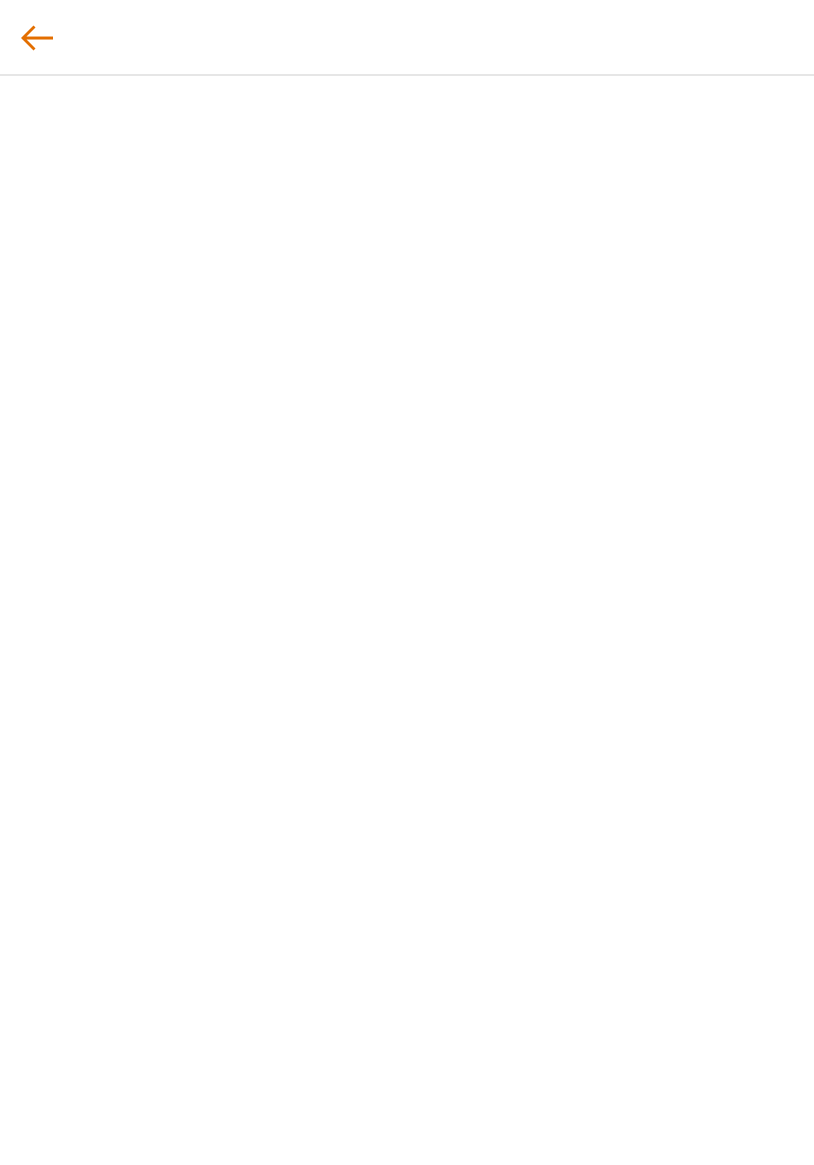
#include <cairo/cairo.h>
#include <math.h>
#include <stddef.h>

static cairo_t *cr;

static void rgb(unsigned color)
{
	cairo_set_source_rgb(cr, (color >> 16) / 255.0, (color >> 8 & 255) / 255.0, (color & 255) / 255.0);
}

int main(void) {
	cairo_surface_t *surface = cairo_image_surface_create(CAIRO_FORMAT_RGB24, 814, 1165);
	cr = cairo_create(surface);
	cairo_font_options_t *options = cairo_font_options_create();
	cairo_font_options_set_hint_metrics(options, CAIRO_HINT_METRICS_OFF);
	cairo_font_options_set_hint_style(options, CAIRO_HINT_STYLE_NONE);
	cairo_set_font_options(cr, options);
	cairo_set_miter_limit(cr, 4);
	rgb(0xffffff);
	cairo_paint(cr);
	rgb(0xe6e6e6);
	cairo_rectangle(cr, 0, 74, 814, 2);
	cairo_fill(cr);
	rgb(0xe36e00);
	cairo_new_path(cr);
	cairo_move_to(cr, 33.5, 25.5);
	cairo_line_to(cr, 35.5, 27.5);
	cairo_line_to(cr, 26.5, 36.5);
	cairo_line_to(cr, 53, 36.5);
	cairo_line_to(cr, 53, 39.5);
	cairo_line_to(cr, 26.5, 39.5);
	cairo_line_to(cr, 35.5, 48.5);
	cairo_line_to(cr, 33.5, 50.5);
	cairo_line_to(cr, 21, 38);
	cairo_close_path(cr);
	cairo_fill(cr);
	cairo_surface_write_to_png(surface, "page.png");
	cairo_font_options_destroy(options);
	cairo_destroy(cr);
	cairo_surface_destroy(surface);
	return 0;
}
